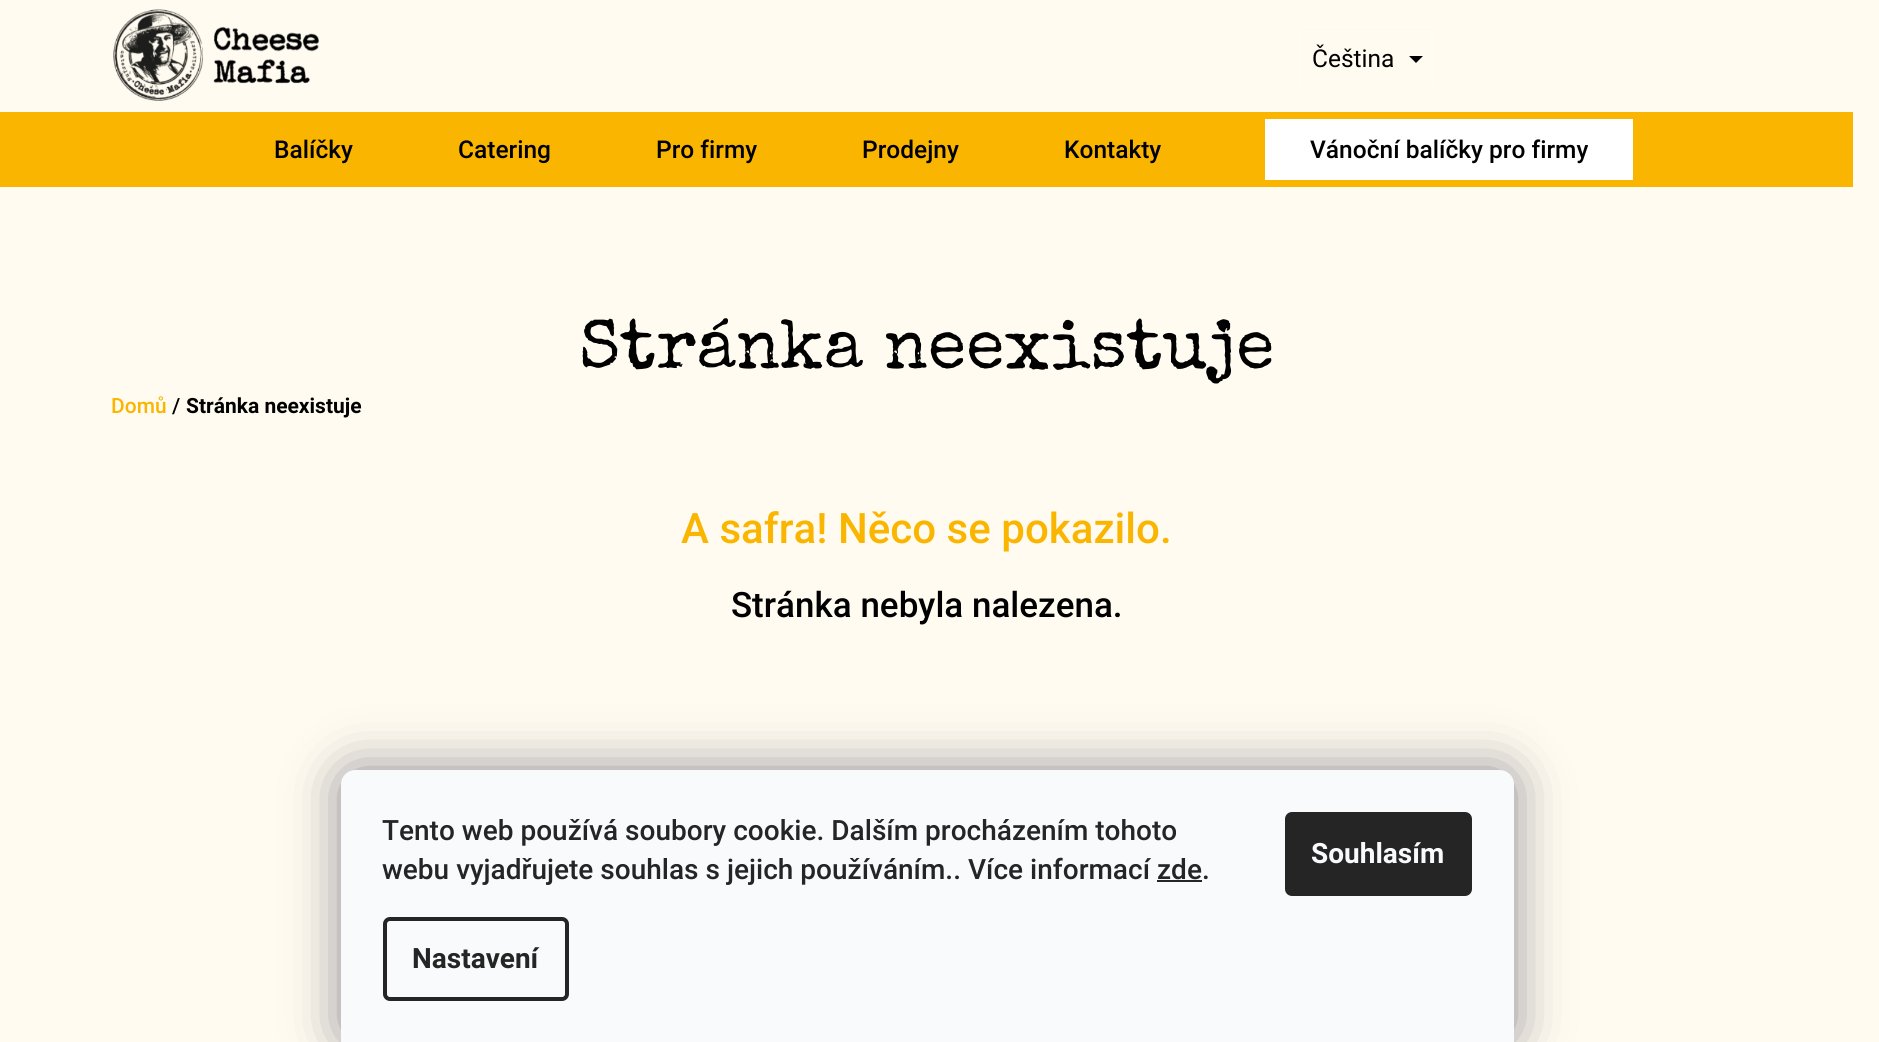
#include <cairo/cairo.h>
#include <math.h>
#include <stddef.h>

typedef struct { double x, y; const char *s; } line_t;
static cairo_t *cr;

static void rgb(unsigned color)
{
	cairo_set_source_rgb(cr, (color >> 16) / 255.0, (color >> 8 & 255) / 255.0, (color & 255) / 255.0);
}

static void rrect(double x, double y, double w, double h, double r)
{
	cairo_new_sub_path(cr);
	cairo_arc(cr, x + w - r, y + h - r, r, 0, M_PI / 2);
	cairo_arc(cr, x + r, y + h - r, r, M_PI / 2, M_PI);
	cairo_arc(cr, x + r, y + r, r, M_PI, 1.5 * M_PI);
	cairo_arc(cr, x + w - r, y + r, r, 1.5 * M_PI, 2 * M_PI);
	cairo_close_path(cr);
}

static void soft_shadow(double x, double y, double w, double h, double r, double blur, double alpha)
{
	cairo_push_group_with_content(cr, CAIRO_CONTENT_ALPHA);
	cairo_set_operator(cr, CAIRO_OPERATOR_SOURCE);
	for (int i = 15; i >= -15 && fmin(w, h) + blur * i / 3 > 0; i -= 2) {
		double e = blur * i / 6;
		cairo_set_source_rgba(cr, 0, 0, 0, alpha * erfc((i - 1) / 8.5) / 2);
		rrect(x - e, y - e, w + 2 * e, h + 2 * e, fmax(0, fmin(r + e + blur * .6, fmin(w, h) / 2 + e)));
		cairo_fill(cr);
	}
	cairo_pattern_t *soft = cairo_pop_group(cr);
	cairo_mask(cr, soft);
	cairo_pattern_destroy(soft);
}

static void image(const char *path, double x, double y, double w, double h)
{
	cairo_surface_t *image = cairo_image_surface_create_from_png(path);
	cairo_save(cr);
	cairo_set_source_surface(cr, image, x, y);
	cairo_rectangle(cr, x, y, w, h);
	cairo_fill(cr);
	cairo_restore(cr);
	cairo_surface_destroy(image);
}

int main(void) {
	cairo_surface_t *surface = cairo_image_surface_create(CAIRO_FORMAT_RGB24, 1879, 1042);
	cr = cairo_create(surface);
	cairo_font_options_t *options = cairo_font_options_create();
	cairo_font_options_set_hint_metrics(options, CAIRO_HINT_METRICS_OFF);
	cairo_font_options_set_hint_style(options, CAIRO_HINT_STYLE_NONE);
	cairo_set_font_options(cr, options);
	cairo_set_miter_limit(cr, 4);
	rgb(0xfffbf0);
	cairo_paint(cr);
	image("img/1.png", 113, 9, 206, 92);
	cairo_rectangle(cr, 1301, 27, 131, 61);
	rgb(0xfffcf5);
	cairo_stroke(cr);
	rgb(0x000000);
	cairo_new_path(cr);
	cairo_move_to(cr, 1409, 56);
	cairo_line_to(cr, 1423, 56);
	cairo_line_to(cr, 1416, 63);
	cairo_close_path(cr);
	cairo_fill(cr);
	rgb(0xfab500);
	cairo_rectangle(cr, 0, 112, 1853, 75);
	cairo_fill(cr);
	rgb(0xffffff);
	cairo_rectangle(cr, 1265, 119, 368, 61);
	cairo_fill(cr);
	rgb(0x1b1939);
	soft_shadow(341, 770, 1173, 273, 14, 26, 0.5);
	rgb(0xf8fafb);
	cairo_new_path(cr);
	cairo_move_to(cr, 355, 770);
	cairo_line_to(cr, 1500, 770);
	cairo_curve_to(cr, 1507.5, 770, 1514, 776.5, 1514, 784);
	cairo_line_to(cr, 1514, 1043);
	cairo_line_to(cr, 341, 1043);
	cairo_line_to(cr, 341, 784);
	cairo_curve_to(cr, 341, 776.5, 347.5, 770, 355, 770);
	cairo_close_path(cr);
	cairo_fill(cr);
	rgb(0x252525);
	cairo_rectangle(cr, 1157, 880, 45, 2);
	cairo_fill(cr);
	rrect(385, 919, 182, 80, 5);
	cairo_set_line_width(cr, 4);
	cairo_stroke(cr);
	rrect(1285, 812, 187, 84, 7);
	cairo_fill(cr);
	cairo_select_font_face(cr, "Roboto", CAIRO_FONT_SLANT_NORMAL, CAIRO_FONT_WEIGHT_NORMAL);
	cairo_set_font_size(cr, 24.5);
	rgb(0x000000);
	cairo_move_to(cr, 1312, 67);
	cairo_show_text(cr, "Čeština");
	cairo_select_font_face(cr, "Roboto Medium", CAIRO_FONT_SLANT_NORMAL, CAIRO_FONT_WEIGHT_NORMAL);
	{
		static const line_t items[] = {
			{274, 158, "Balíčky"},
			{458, 158, "Catering"},
			{656, 158, "Pro firmy"},
			{862, 158, "Prodejny"},
			{1064, 158, "Kontakty"},
			{1310, 158, "Vánoční balíčky pro firmy"},
		};
		for (size_t i = 0; i < sizeof items / sizeof *items; i++) {
			cairo_move_to(cr, items[i].x, items[i].y);
			cairo_show_text(cr, items[i].s);
		}
	}
	cairo_select_font_face(cr, "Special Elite", CAIRO_FONT_SLANT_NORMAL, CAIRO_FONT_WEIGHT_NORMAL);
	cairo_set_font_size(cr, 70);
	cairo_move_to(cr, 579, 367);
	cairo_show_text(cr, "Stránka neexistuje");
	cairo_select_font_face(cr, "Roboto Medium", CAIRO_FONT_SLANT_NORMAL, CAIRO_FONT_WEIGHT_NORMAL);
	cairo_set_font_size(cr, 21);
	rgb(0xfab500);
	cairo_move_to(cr, 111, 413);
	cairo_show_text(cr, "Domů");
	rgb(0x000000);
	cairo_move_to(cr, 172, 413);
	cairo_show_text(cr, "/");
	cairo_select_font_face(cr, "Roboto", CAIRO_FONT_SLANT_NORMAL, CAIRO_FONT_WEIGHT_BOLD);
	cairo_move_to(cr, 186, 413);
	cairo_show_text(cr, "Stránka neexistuje");
	cairo_select_font_face(cr, "Roboto Medium", CAIRO_FONT_SLANT_NORMAL, CAIRO_FONT_WEIGHT_NORMAL);
	cairo_set_font_size(cr, 42);
	rgb(0xfab500);
	cairo_move_to(cr, 681, 543);
	cairo_show_text(cr, "A safra! Něco se pokazilo.");
	cairo_set_font_size(cr, 35);
	rgb(0x000000);
	cairo_move_to(cr, 731, 617);
	cairo_show_text(cr, "Stránka nebyla nalezena.");
	cairo_set_font_size(cr, 28);
	rgb(0x252525);
	cairo_move_to(cr, 382, 840);
	cairo_show_text(cr, "Tento web používá soubory cookie. Dalším procházením tohoto");
	cairo_move_to(cr, 382, 879);
	cairo_show_text(cr, "webu vyjadřujete souhlas s jejich používáním.. Více informací zde.");
	cairo_select_font_face(cr, "Roboto", CAIRO_FONT_SLANT_NORMAL, CAIRO_FONT_WEIGHT_BOLD);
	cairo_move_to(cr, 412, 968);
	cairo_show_text(cr, "Nastavení");
	rgb(0xf8fafb);
	cairo_move_to(cr, 1311, 863);
	cairo_show_text(cr, "Souhlasím");
	cairo_surface_write_to_png(surface, "page.png");
	cairo_font_options_destroy(options);
	cairo_destroy(cr);
	cairo_surface_destroy(surface);
	return 0;
}
